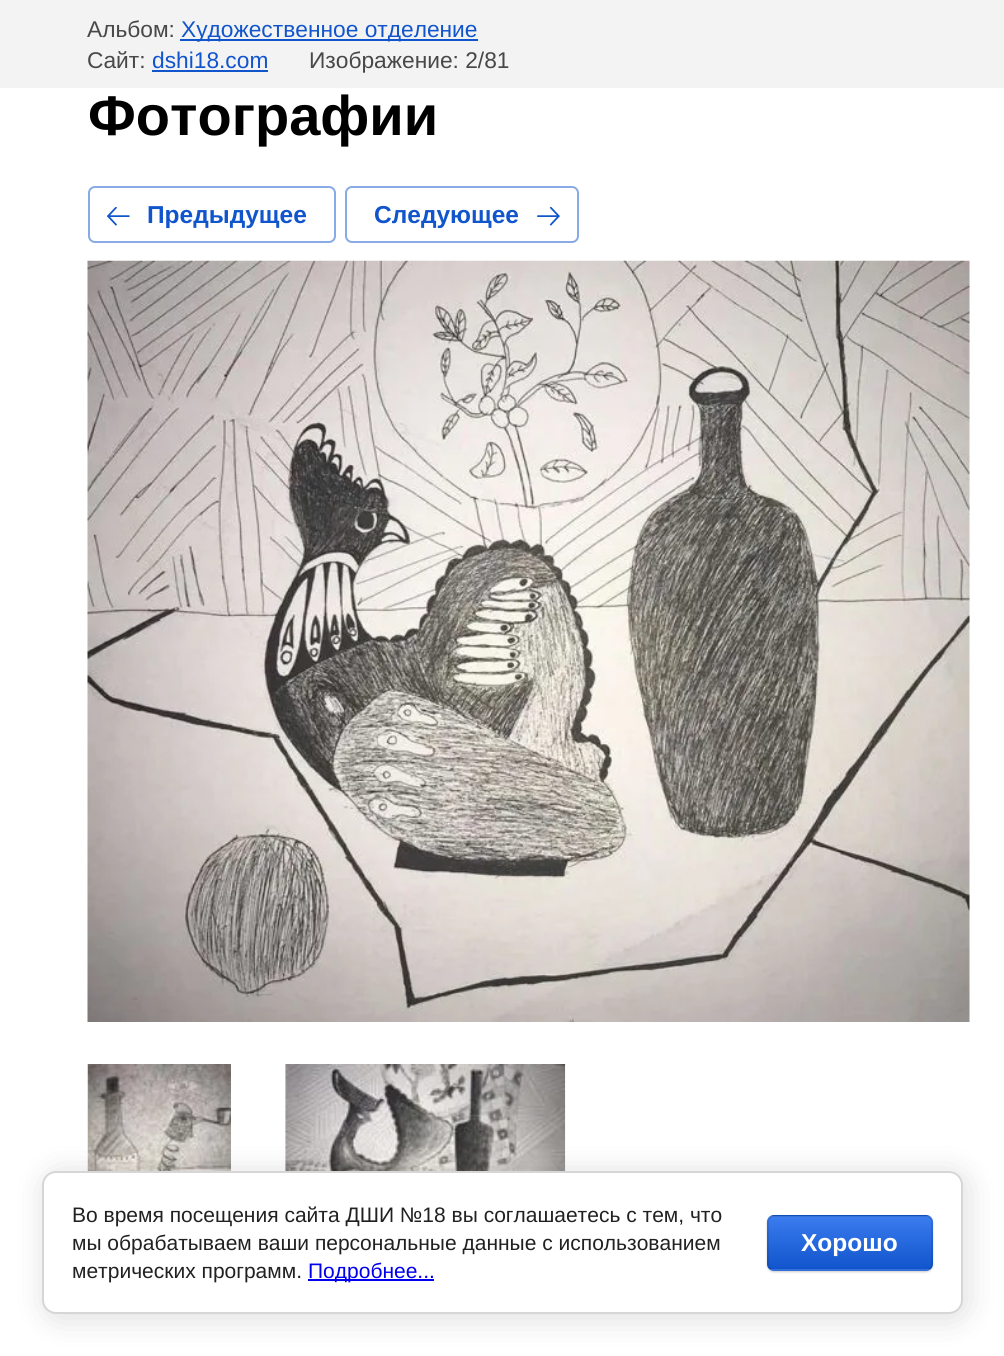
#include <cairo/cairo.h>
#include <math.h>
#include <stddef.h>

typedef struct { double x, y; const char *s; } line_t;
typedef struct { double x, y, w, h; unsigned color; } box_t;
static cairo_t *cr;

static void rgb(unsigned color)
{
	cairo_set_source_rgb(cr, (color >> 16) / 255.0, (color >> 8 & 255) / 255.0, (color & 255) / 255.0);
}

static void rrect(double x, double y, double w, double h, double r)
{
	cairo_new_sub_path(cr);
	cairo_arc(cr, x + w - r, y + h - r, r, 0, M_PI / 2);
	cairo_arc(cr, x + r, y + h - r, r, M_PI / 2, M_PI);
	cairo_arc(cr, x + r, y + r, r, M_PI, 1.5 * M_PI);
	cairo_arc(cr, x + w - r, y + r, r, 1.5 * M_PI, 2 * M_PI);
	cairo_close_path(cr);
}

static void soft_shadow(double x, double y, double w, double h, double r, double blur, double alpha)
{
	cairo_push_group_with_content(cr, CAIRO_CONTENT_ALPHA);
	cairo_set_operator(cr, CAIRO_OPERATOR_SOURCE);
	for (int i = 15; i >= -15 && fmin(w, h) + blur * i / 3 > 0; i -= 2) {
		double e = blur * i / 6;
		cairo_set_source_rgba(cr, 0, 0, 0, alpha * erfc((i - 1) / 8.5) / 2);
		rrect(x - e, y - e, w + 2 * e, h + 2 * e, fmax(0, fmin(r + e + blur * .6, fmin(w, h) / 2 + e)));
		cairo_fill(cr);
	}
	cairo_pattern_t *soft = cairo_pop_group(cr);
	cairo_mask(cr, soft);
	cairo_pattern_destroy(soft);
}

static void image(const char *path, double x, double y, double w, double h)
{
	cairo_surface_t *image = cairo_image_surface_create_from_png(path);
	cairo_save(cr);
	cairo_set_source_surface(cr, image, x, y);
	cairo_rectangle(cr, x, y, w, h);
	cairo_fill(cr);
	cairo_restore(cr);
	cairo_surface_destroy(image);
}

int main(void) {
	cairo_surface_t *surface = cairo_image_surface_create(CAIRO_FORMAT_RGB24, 1004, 1356);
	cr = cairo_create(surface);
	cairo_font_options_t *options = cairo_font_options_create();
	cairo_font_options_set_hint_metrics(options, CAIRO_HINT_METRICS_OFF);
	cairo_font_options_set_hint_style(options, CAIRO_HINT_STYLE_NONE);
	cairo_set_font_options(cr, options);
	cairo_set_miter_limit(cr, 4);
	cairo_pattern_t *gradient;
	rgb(0xffffff);
	cairo_paint(cr);
	{
		static const box_t items[] = {
			{0, 0, 1004, 88, 0xf3f3f3},
			{180, 39, 298, 2, 0x1155cc},
			{152, 70, 116, 2, 0x1155cc},
		};
		for (size_t i = 0; i < sizeof items / sizeof *items; i++) {
			rgb(items[i].color);
			cairo_rectangle(cr, items[i].x, items[i].y, items[i].w, items[i].h);
			cairo_fill(cr);
		}
	}
	rrect(89, 187, 246, 55, 6);
	rgb(0x88aae6);
	cairo_stroke(cr);
	image("img/1.png", 107, 207, 23, 19);
	rrect(346, 187, 232, 55, 6);
	cairo_stroke(cr);
	image("img/2.png", 537, 207, 23, 19);
	image("img/3.png", 87, 260, 883, 762);
	image("img/4.png", 87, 1064, 144, 107);
	image("img/5.png", 285, 1064, 281, 107);
	rgb(0x000000);
	soft_shadow(46, 1174, 920, 144, 14, 16, 0.14);
	rgb(0xffffff);
	rrect(43, 1172, 919, 141, 13);
	cairo_fill_preserve(cr);
	rgb(0xd6d6d6);
	cairo_stroke(cr);
	rgb(0x0000ee);
	cairo_rectangle(cr, 308, 1279, 126, 2);
	cairo_fill(cr);
	rgb(0x000000);
	soft_shadow(767, 1216, 166, 56, 7, 1, 0.2);
	cairo_save(cr);
	rrect(767, 1215, 166, 56, 7);
	cairo_clip(cr);
	gradient = cairo_pattern_create_linear(850, 1164, 850, 1216);
	cairo_pattern_add_color_stop_rgba(gradient, 0, 0.231, 0.486, 0.937, 1);
	cairo_pattern_add_color_stop_rgba(gradient, 1, 0.067, 0.333, 0.8, 1);
	cairo_set_source(cr, gradient);
	cairo_pattern_destroy(gradient);
	cairo_rectangle(cr, 767, 1215, 166, 1);
	cairo_fill(cr);
	gradient = cairo_pattern_create_linear(850, 1216, 850, 1269);
	cairo_pattern_add_color_stop_rgba(gradient, 0, 0.231, 0.486, 0.937, 1);
	cairo_pattern_add_color_stop_rgba(gradient, 1, 0.067, 0.333, 0.8, 1);
	cairo_set_source(cr, gradient);
	cairo_pattern_destroy(gradient);
	cairo_rectangle(cr, 767, 1216, 166, 53);
	cairo_fill(cr);
	gradient = cairo_pattern_create_linear(850, 1269, 850, 1321);
	cairo_pattern_add_color_stop_rgba(gradient, 0, 0.231, 0.486, 0.937, 1);
	cairo_pattern_add_color_stop_rgba(gradient, 1, 0.067, 0.333, 0.8, 1);
	cairo_set_source(cr, gradient);
	cairo_pattern_destroy(gradient);
	cairo_rectangle(cr, 767, 1269, 166, 2);
	cairo_fill(cr);
	cairo_restore(cr);
	rrect(768, 1216, 164, 54, 6);
	cairo_set_source_rgba(cr, 0, 0, 0, 0.1);
	cairo_stroke(cr);
	cairo_select_font_face(cr, "Liberation Sans", CAIRO_FONT_SLANT_NORMAL, CAIRO_FONT_WEIGHT_NORMAL);
	cairo_set_font_size(cr, 22.75);
	rgb(0x484848);
	cairo_move_to(cr, 87, 37);
	cairo_show_text(cr, "Альбом:");
	rgb(0x1155cc);
	cairo_move_to(cr, 181, 37);
	cairo_show_text(cr, "Художественное отделение");
	rgb(0x484848);
	cairo_move_to(cr, 87, 68);
	cairo_show_text(cr, "Сайт:");
	rgb(0x1155cc);
	cairo_move_to(cr, 152, 68);
	cairo_show_text(cr, "dshi18.com");
	rgb(0x484848);
	cairo_move_to(cr, 309, 68);
	cairo_show_text(cr, "Изображение: 2/81");
	cairo_select_font_face(cr, "Liberation Sans", CAIRO_FONT_SLANT_NORMAL, CAIRO_FONT_WEIGHT_BOLD);
	cairo_set_font_size(cr, 56);
	rgb(0x000000);
	cairo_move_to(cr, 88, 135);
	cairo_show_text(cr, "Фотографии");
	cairo_set_font_size(cr, 24.5);
	rgb(0x1155cc);
	cairo_move_to(cr, 147, 223);
	cairo_show_text(cr, "Предыдущее");
	cairo_move_to(cr, 374, 223);
	cairo_show_text(cr, "Следующее");
	cairo_select_font_face(cr, "Liberation Sans", CAIRO_FONT_SLANT_NORMAL, CAIRO_FONT_WEIGHT_NORMAL);
	cairo_set_font_size(cr, 21);
	rgb(0x212121);
	{
		static const line_t items[] = {
			{72, 1222, "Во время посещения сайта ДШИ №18 вы соглашаетесь с тем, что"},
			{72, 1250, "мы обрабатываем ваши персональные данные с использованием"},
			{72, 1278, "метрических программ."},
		};
		for (size_t i = 0; i < sizeof items / sizeof *items; i++) {
			cairo_move_to(cr, items[i].x, items[i].y);
			cairo_show_text(cr, items[i].s);
		}
	}
	rgb(0x0000ee);
	cairo_move_to(cr, 308, 1278);
	cairo_show_text(cr, "Подробнее...");
	cairo_select_font_face(cr, "Liberation Sans", CAIRO_FONT_SLANT_NORMAL, CAIRO_FONT_WEIGHT_BOLD);
	cairo_set_font_size(cr, 24.5);
	rgb(0xffffff);
	cairo_move_to(cr, 801, 1251);
	cairo_show_text(cr, "Хорошо");
	cairo_surface_write_to_png(surface, "page.png");
	cairo_font_options_destroy(options);
	cairo_destroy(cr);
	cairo_surface_destroy(surface);
	return 0;
}
